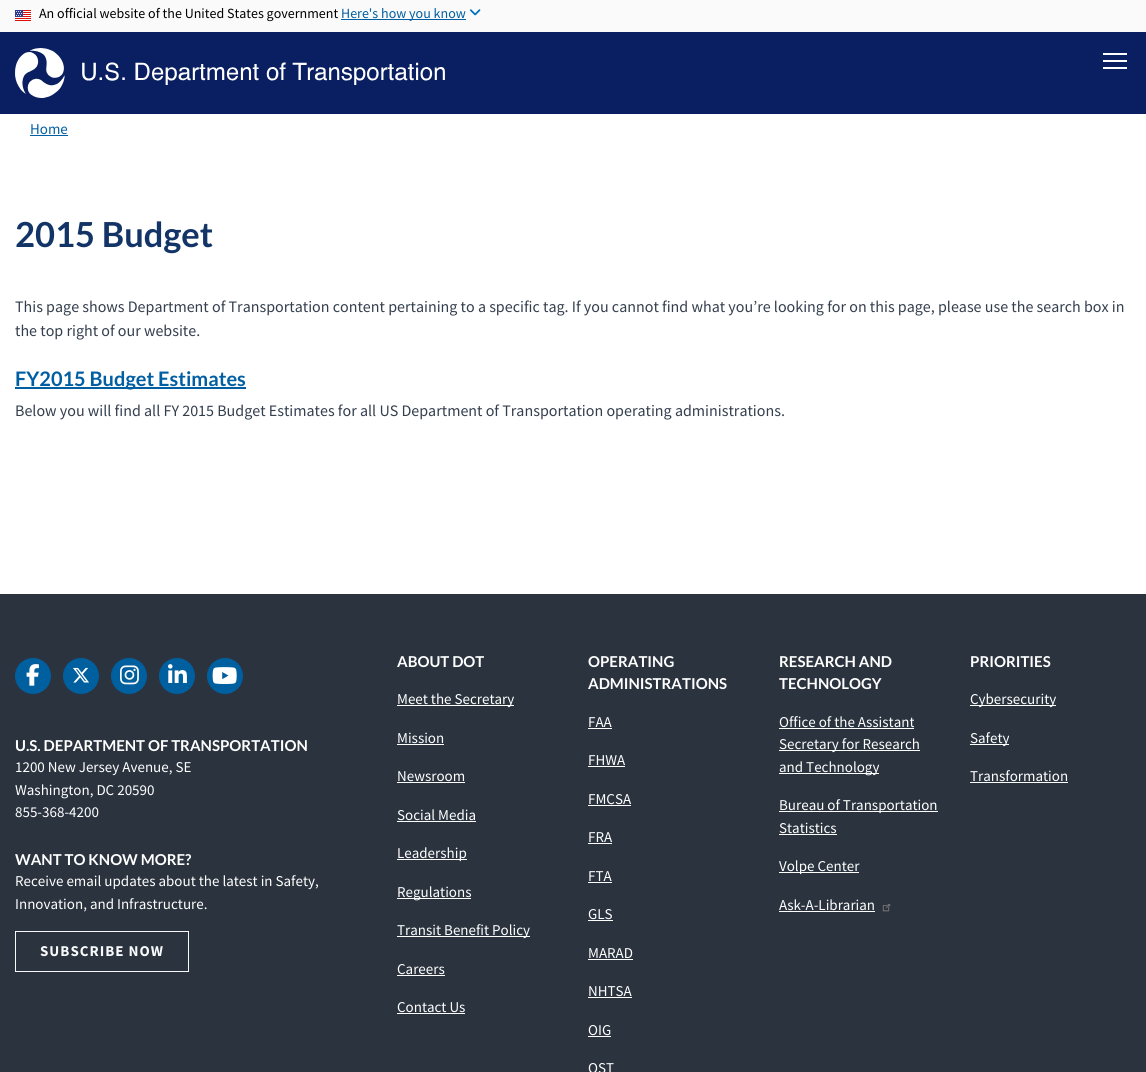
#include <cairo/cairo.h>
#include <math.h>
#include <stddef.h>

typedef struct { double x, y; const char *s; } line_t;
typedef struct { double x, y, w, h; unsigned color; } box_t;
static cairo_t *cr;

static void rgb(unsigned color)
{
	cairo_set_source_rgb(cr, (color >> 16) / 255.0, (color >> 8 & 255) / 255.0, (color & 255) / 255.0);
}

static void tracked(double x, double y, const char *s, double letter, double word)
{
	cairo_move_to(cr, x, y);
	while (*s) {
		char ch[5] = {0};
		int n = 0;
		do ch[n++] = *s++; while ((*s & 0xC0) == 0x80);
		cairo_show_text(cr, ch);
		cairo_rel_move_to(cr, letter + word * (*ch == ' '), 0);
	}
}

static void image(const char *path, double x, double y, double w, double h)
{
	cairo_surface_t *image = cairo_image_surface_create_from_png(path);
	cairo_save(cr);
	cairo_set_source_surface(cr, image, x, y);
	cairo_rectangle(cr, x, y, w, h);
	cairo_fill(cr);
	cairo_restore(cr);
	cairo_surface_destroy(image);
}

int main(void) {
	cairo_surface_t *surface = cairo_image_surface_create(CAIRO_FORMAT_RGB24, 1146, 1072);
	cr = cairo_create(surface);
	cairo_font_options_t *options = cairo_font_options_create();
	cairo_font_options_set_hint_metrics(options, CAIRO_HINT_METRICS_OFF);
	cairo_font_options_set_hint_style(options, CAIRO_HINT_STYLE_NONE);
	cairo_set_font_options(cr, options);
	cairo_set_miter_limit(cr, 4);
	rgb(0x2a333e);
	cairo_paint(cr);
	rgb(0xfafafa);
	cairo_rectangle(cr, 0, 0, 1146, 32);
	cairo_fill(cr);
	image("img/1.png", 15, 10, 16, 11);
	rgb(0x005ea2);
	cairo_rectangle(cr, 341, 19, 125, 1);
	cairo_fill(cr);
	image("img/2.png", 469, 9, 12, 7);
	rgb(0x0a1f61);
	cairo_rectangle(cr, 0, 32, 1146, 82);
	cairo_fill(cr);
	image("img/3.png", 15, 48, 430, 50);
	{
		static const box_t items[] = {
			{1103, 53, 24, 2, 0xffffff},
			{1103, 60, 24, 2, 0xffffff},
			{1103, 67, 24, 2, 0xffffff},
			{0, 114, 1146, 480, 0xffffff},
			{30, 135, 38, 1, 0x005ea2},
			{15, 387, 231, 2, 0x005ea2},
			{397, 705, 117, 1, 0xffffff},
			{397, 744, 47, 1, 0xffffff},
			{397, 782, 68, 1, 0xffffff},
			{397, 821, 79, 1, 0xffffff},
			{397, 859, 70, 1, 0xffffff},
			{397, 898, 74, 1, 0xffffff},
			{397, 936, 133, 1, 0xffffff},
			{397, 975, 48, 1, 0xffffff},
			{397, 1013, 68, 1, 0xffffff},
			{588, 728, 24, 1, 0xffffff},
			{588, 766, 37, 1, 0xffffff},
			{588, 805, 43, 1, 0xffffff},
			{588, 843, 24, 1, 0xffffff},
			{588, 882, 24, 1, 0xffffff},
			{588, 920, 25, 1, 0xffffff},
			{588, 959, 45, 1, 0xffffff},
			{588, 997, 44, 1, 0xffffff},
			{588, 1036, 23, 1, 0xffffff},
			{779, 728, 135, 1, 0xffffff},
			{779, 750, 141, 1, 0xffffff},
			{779, 773, 100, 1, 0xffffff},
			{779, 811, 159, 1, 0xffffff},
			{779, 834, 58, 1, 0xffffff},
			{779, 872, 80, 1, 0xffffff},
			{779, 911, 96, 1, 0xffffff},
		};
		for (size_t i = 0; i < sizeof items / sizeof *items; i++) {
			rgb(items[i].color);
			cairo_rectangle(cr, items[i].x, items[i].y, items[i].w, items[i].h);
			cairo_fill(cr);
		}
	}
	image("img/4.png", 882, 903, 9, 9);
	{
		static const box_t items[] = {
			{970, 705, 86, 1, 0xffffff},
			{970, 744, 39, 1, 0xffffff},
			{970, 782, 98, 1, 0xffffff},
		};
		for (size_t i = 0; i < sizeof items / sizeof *items; i++) {
			rgb(items[i].color);
			cairo_rectangle(cr, items[i].x, items[i].y, items[i].w, items[i].h);
			cairo_fill(cr);
		}
	}
	rgb(0x005f9f);
	cairo_arc(cr, 33, 676, 18, 0, 2 * M_PI);
	cairo_fill(cr);
	image("img/5.png", 26, 664, 13, 22);
	cairo_arc(cr, 81, 676, 18, 0, 2 * M_PI);
	cairo_fill(cr);
	image("img/6.png", 73, 667, 16, 16);
	cairo_arc(cr, 129, 676, 18, 0, 2 * M_PI);
	cairo_fill(cr);
	image("img/7.png", 120, 665, 19, 20);
	cairo_arc(cr, 177, 676, 18, 0, 2 * M_PI);
	cairo_fill(cr);
	image("img/8.png", 168, 664, 19, 19);
	cairo_arc(cr, 225, 676, 18, 0, 2 * M_PI);
	cairo_fill(cr);
	image("img/9.png", 212, 667, 25, 17);
	cairo_rectangle(cr, 15.5, 931.5, 173, 40);
	rgb(0xf8f9fa);
	cairo_set_line_width(cr, 1);
	cairo_stroke(cr);
	cairo_select_font_face(cr, "Source Sans Pro", CAIRO_FONT_SLANT_NORMAL, CAIRO_FONT_WEIGHT_NORMAL);
	cairo_set_font_size(cr, 14);
	rgb(0x000000);
	cairo_move_to(cr, 39, 18);
	cairo_show_text(cr, "An official website of the United States government");
	rgb(0x005ea2);
	cairo_move_to(cr, 341, 18);
	cairo_show_text(cr, "Here's how you know");
	cairo_set_font_size(cr, 15);
	cairo_move_to(cr, 30, 134);
	cairo_show_text(cr, "Home");
	cairo_select_font_face(cr, "Lato", CAIRO_FONT_SLANT_NORMAL, CAIRO_FONT_WEIGHT_BOLD);
	cairo_set_font_size(cr, 34.5);
	rgb(0x133466);
	cairo_move_to(cr, 15, 247);
	cairo_show_text(cr, "2015 Budget");
	cairo_select_font_face(cr, "Source Sans Pro", CAIRO_FONT_SLANT_NORMAL, CAIRO_FONT_WEIGHT_NORMAL);
	cairo_set_font_size(cr, 16);
	rgb(0x343f4e);
	cairo_move_to(cr, 15, 312);
	cairo_show_text(cr, "This page shows Department of Transportation content pertaining to a specific tag. If you cannot find what you’re looking for on this page, please use the search box in");
	cairo_move_to(cr, 15, 336);
	cairo_show_text(cr, "the top right of our website.");
	cairo_select_font_face(cr, "Lato", CAIRO_FONT_SLANT_NORMAL, CAIRO_FONT_WEIGHT_BOLD);
	cairo_set_font_size(cr, 20);
	rgb(0x005ea2);
	cairo_move_to(cr, 15, 386);
	cairo_show_text(cr, "FY2015 Budget Estimates");
	cairo_select_font_face(cr, "Source Sans Pro", CAIRO_FONT_SLANT_NORMAL, CAIRO_FONT_WEIGHT_NORMAL);
	cairo_set_font_size(cr, 16);
	rgb(0x343f4e);
	cairo_move_to(cr, 15, 416);
	cairo_show_text(cr, "Below you will find all FY 2015 Budget Estimates for all US Department of Transportation operating administrations.");
	cairo_select_font_face(cr, "Lato", CAIRO_FONT_SLANT_NORMAL, CAIRO_FONT_WEIGHT_BOLD);
	cairo_set_font_size(cr, 15);
	rgb(0xffffff);
	cairo_move_to(cr, 397, 667);
	cairo_show_text(cr, "ABOUT DOT");
	cairo_select_font_face(cr, "Source Sans Pro", CAIRO_FONT_SLANT_NORMAL, CAIRO_FONT_WEIGHT_NORMAL);
	{
		static const line_t items[] = {
			{397, 704, "Meet the Secretary"},
			{397, 743, "Mission"},
			{397, 781, "Newsroom"},
			{397, 820, "Social Media"},
			{397, 858, "Leadership"},
			{397, 897, "Regulations"},
			{397, 935, "Transit Benefit Policy"},
			{397, 974, "Careers"},
			{397, 1012, "Contact Us"},
		};
		for (size_t i = 0; i < sizeof items / sizeof *items; i++) {
			cairo_move_to(cr, items[i].x, items[i].y);
			cairo_show_text(cr, items[i].s);
		}
	}
	cairo_select_font_face(cr, "Lato", CAIRO_FONT_SLANT_NORMAL, CAIRO_FONT_WEIGHT_BOLD);
	cairo_move_to(cr, 588, 667);
	cairo_show_text(cr, "OPERATING");
	cairo_move_to(cr, 588, 689);
	cairo_show_text(cr, "ADMINISTRATIONS");
	cairo_select_font_face(cr, "Source Sans Pro", CAIRO_FONT_SLANT_NORMAL, CAIRO_FONT_WEIGHT_NORMAL);
	{
		static const line_t items[] = {
			{588, 727, "FAA"},
			{588, 765, "FHWA"},
			{588, 804, "FMCSA"},
			{588, 842, "FRA"},
			{588, 881, "FTA"},
			{588, 919, "GLS"},
			{588, 958, "MARAD"},
			{588, 996, "NHTSA"},
			{588, 1035, "OIG"},
			{588, 1073, "OST"},
		};
		for (size_t i = 0; i < sizeof items / sizeof *items; i++) {
			cairo_move_to(cr, items[i].x, items[i].y);
			cairo_show_text(cr, items[i].s);
		}
	}
	cairo_select_font_face(cr, "Lato", CAIRO_FONT_SLANT_NORMAL, CAIRO_FONT_WEIGHT_BOLD);
	cairo_move_to(cr, 779, 667);
	cairo_show_text(cr, "RESEARCH AND");
	cairo_move_to(cr, 779, 689);
	cairo_show_text(cr, "TECHNOLOGY");
	cairo_select_font_face(cr, "Source Sans Pro", CAIRO_FONT_SLANT_NORMAL, CAIRO_FONT_WEIGHT_NORMAL);
	{
		static const line_t items[] = {
			{779, 727, "Office of the Assistant"},
			{779, 749, "Secretary for Research"},
			{779, 772, "and Technology"},
			{779, 810, "Bureau of Transportation"},
			{779, 833, "Statistics"},
			{779, 871, "Volpe Center"},
			{779, 910, "Ask-A-Librarian"},
		};
		for (size_t i = 0; i < sizeof items / sizeof *items; i++) {
			cairo_move_to(cr, items[i].x, items[i].y);
			cairo_show_text(cr, items[i].s);
		}
	}
	cairo_select_font_face(cr, "Lato", CAIRO_FONT_SLANT_NORMAL, CAIRO_FONT_WEIGHT_BOLD);
	cairo_move_to(cr, 970, 667);
	cairo_show_text(cr, "PRIORITIES");
	cairo_select_font_face(cr, "Source Sans Pro", CAIRO_FONT_SLANT_NORMAL, CAIRO_FONT_WEIGHT_NORMAL);
	{
		static const line_t items[] = {
			{970, 704, "Cybersecurity"},
			{970, 743, "Safety"},
			{970, 781, "Transformation"},
		};
		for (size_t i = 0; i < sizeof items / sizeof *items; i++) {
			cairo_move_to(cr, items[i].x, items[i].y);
			cairo_show_text(cr, items[i].s);
		}
	}
	cairo_select_font_face(cr, "Lato", CAIRO_FONT_SLANT_NORMAL, CAIRO_FONT_WEIGHT_BOLD);
	cairo_move_to(cr, 15, 751);
	cairo_show_text(cr, "U.S. DEPARTMENT OF TRANSPORTATION");
	cairo_select_font_face(cr, "Source Sans Pro", CAIRO_FONT_SLANT_NORMAL, CAIRO_FONT_WEIGHT_NORMAL);
	{
		static const line_t items[] = {
			{15, 772, "1200 New Jersey Avenue, SE"},
			{15, 795, "Washington, DC 20590"},
			{15, 817, "855-368-4200"},
		};
		for (size_t i = 0; i < sizeof items / sizeof *items; i++) {
			cairo_move_to(cr, items[i].x, items[i].y);
			cairo_show_text(cr, items[i].s);
		}
	}
	cairo_select_font_face(cr, "Lato", CAIRO_FONT_SLANT_NORMAL, CAIRO_FONT_WEIGHT_BOLD);
	cairo_move_to(cr, 15, 865);
	cairo_show_text(cr, "WANT TO KNOW MORE?");
	cairo_select_font_face(cr, "Source Sans Pro", CAIRO_FONT_SLANT_NORMAL, CAIRO_FONT_WEIGHT_NORMAL);
	cairo_move_to(cr, 15, 886);
	cairo_show_text(cr, "Receive email updates about the latest in Safety,");
	cairo_move_to(cr, 15, 909);
	cairo_show_text(cr, "Innovation, and Infrastructure.");
	cairo_select_font_face(cr, "Source Sans Pro", CAIRO_FONT_SLANT_NORMAL, CAIRO_FONT_WEIGHT_BOLD);
	rgb(0xf8f9fa);
	tracked(40, 956, "SUBSCRIBE NOW", 1, 0);
	cairo_surface_write_to_png(surface, "page.png");
	cairo_font_options_destroy(options);
	cairo_destroy(cr);
	cairo_surface_destroy(surface);
	return 0;
}
